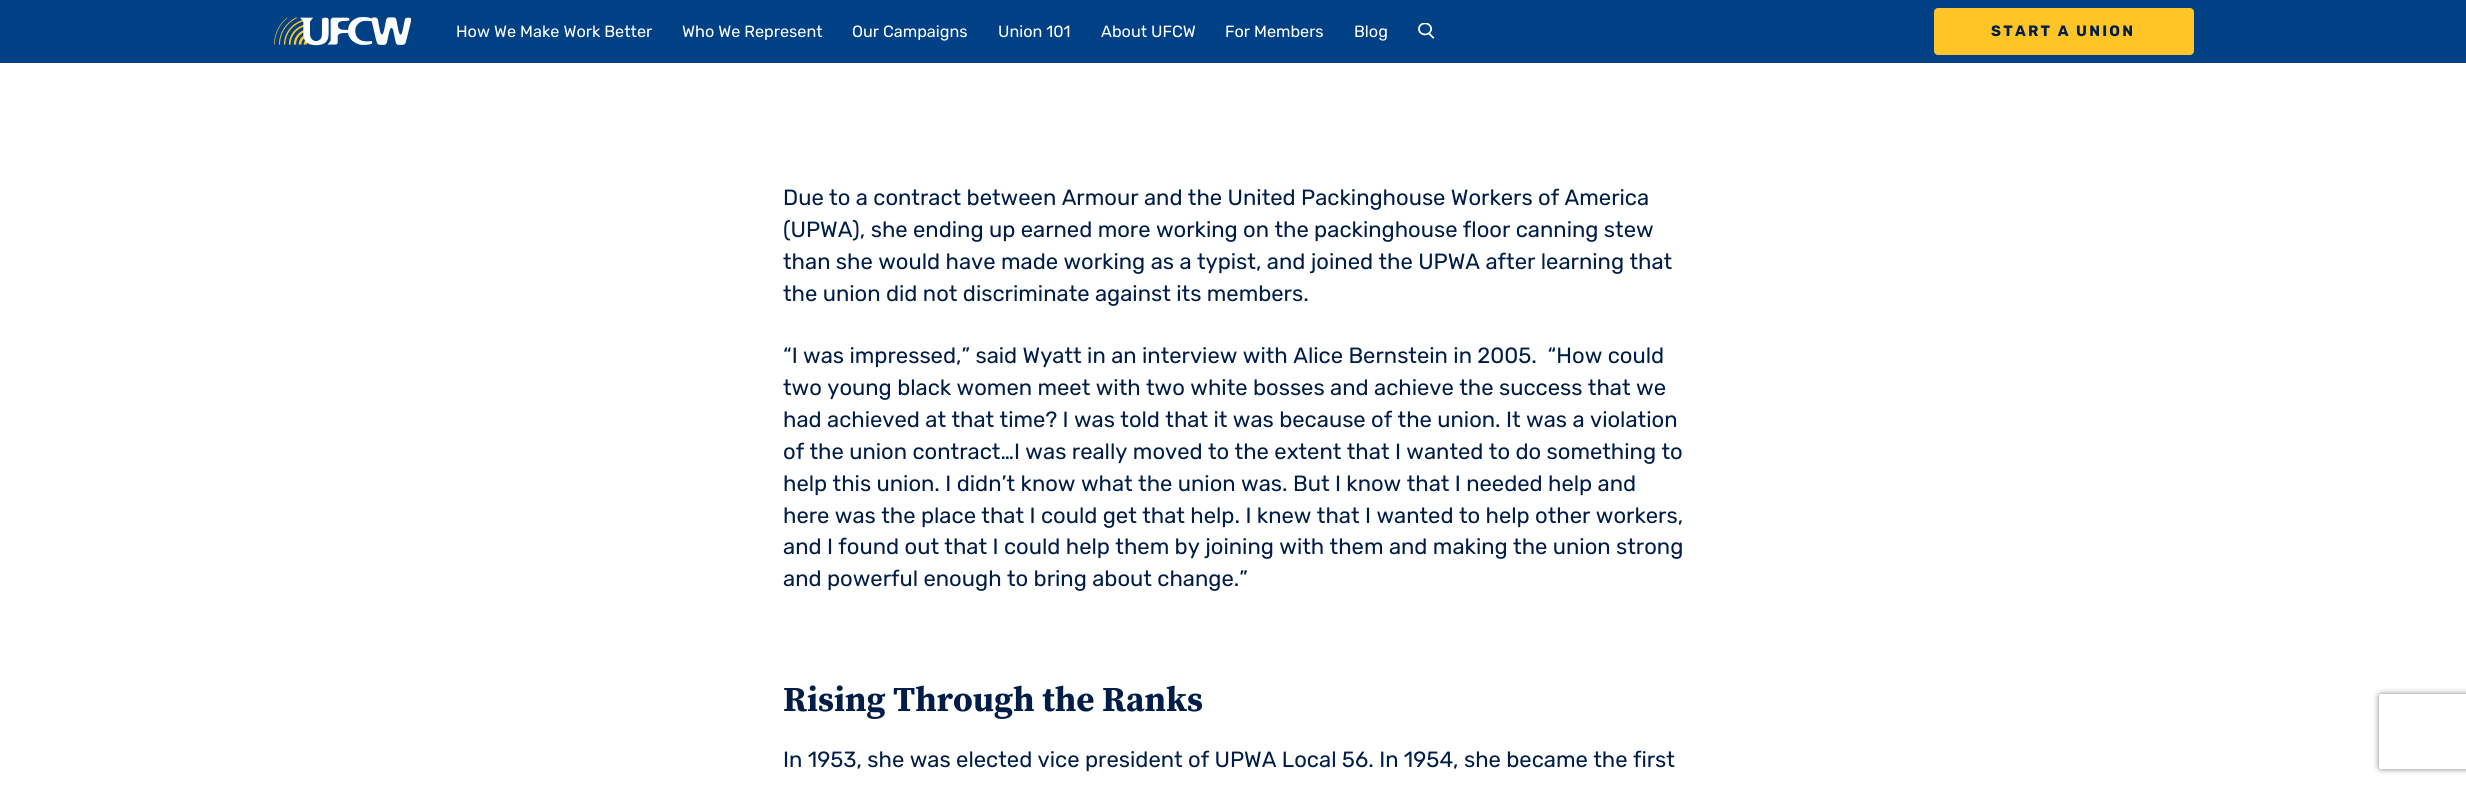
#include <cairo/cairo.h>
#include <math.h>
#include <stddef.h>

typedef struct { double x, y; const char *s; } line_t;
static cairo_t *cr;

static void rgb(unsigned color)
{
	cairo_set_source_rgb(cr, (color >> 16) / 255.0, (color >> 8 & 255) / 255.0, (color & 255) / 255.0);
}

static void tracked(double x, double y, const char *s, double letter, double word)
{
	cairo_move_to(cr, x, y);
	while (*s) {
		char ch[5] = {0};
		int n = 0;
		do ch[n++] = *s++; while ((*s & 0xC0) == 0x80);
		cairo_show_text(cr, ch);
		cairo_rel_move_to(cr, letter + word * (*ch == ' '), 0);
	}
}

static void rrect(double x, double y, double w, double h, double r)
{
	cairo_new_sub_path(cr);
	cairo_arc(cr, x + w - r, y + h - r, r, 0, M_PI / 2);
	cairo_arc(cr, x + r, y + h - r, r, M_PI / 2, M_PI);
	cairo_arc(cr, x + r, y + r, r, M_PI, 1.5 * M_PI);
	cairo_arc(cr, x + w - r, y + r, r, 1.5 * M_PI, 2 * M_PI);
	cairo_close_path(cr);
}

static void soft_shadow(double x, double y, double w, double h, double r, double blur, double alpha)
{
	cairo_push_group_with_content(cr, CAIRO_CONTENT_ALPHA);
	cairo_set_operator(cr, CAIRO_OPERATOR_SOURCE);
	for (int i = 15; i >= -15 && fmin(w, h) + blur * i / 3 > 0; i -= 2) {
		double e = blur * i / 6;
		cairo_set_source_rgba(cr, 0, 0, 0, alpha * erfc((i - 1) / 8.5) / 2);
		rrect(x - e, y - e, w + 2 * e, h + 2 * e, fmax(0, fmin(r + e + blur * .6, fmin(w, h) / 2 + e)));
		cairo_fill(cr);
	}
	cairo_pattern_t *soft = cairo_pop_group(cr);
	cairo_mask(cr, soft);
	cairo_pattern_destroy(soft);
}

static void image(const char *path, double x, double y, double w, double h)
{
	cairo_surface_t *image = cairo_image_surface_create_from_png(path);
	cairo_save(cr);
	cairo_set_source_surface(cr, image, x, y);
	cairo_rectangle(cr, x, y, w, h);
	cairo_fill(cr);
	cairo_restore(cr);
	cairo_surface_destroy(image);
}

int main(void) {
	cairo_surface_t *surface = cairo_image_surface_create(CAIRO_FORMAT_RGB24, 2466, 786);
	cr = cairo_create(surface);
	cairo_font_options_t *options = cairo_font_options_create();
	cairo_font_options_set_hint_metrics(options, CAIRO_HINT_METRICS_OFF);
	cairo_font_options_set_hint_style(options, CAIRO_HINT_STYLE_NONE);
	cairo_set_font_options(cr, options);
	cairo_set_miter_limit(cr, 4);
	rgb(0xffffff);
	cairo_paint(cr);
	rgb(0x004085);
	cairo_rectangle(cr, 0, 0, 2466, 63);
	cairo_fill(cr);
	image("img/1.png", 274, 17, 137, 29);
	image("img/2.png", 1418, 23, 17, 16);
	rgb(0xffc425);
	rrect(1935.5, 9.5, 257, 44, 2.5);
	cairo_fill_preserve(cr);
	cairo_set_line_width(cr, 3);
	cairo_stroke(cr);
	cairo_save(cr);
	cairo_set_fill_rule(cr, CAIRO_FILL_RULE_EVEN_ODD);
	cairo_new_path(cr);
	cairo_move_to(cr, 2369, 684);
	cairo_line_to(cr, 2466, 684);
	cairo_line_to(cr, 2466, 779);
	cairo_line_to(cr, 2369, 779);
	cairo_close_path(cr);
	cairo_move_to(cr, 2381.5, 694);
	cairo_line_to(cr, 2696.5, 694);
	cairo_curve_to(cr, 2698, 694, 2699, 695, 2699, 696.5);
	cairo_line_to(cr, 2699, 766.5);
	cairo_curve_to(cr, 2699, 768, 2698, 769, 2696.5, 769);
	cairo_line_to(cr, 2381.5, 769);
	cairo_curve_to(cr, 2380, 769, 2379, 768, 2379, 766.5);
	cairo_line_to(cr, 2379, 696.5);
	cairo_curve_to(cr, 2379, 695, 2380, 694, 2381.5, 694);
	cairo_close_path(cr);
	cairo_clip(cr);
	rgb(0x808080);
	soft_shadow(2379, 694, 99, 75, 2.5, 3, 1);
	cairo_restore(cr);
	cairo_select_font_face(cr, "Rubik", CAIRO_FONT_SLANT_NORMAL, CAIRO_FONT_WEIGHT_NORMAL);
	cairo_set_font_size(cr, 16.25);
	rgb(0xffffff);
	{
		static const line_t items[] = {
			{456, 37, "How We Make Work Better"},
			{682, 37, "Who We Represent"},
			{852, 37, "Our Campaigns"},
			{998, 37, "Union 101"},
			{1101, 37, "About UFCW"},
			{1225, 37, "For Members"},
			{1354, 37, "Blog"},
		};
		for (size_t i = 0; i < sizeof items / sizeof *items; i++) {
			cairo_move_to(cr, items[i].x, items[i].y);
			cairo_show_text(cr, items[i].s);
		}
	}
	cairo_select_font_face(cr, "Rubik", CAIRO_FONT_SLANT_NORMAL, CAIRO_FONT_WEIGHT_BOLD);
	cairo_set_font_size(cr, 15);
	rgb(0x001d48);
	tracked(1991, 36, "START A UNION", 2.25, 0);
	cairo_select_font_face(cr, "Rubik", CAIRO_FONT_SLANT_NORMAL, CAIRO_FONT_WEIGHT_NORMAL);
	cairo_set_font_size(cr, 22);
	{
		static const line_t items[] = {
			{783, 205, "Due to a contract between Armour and the United Packinghouse Workers of America"},
			{783, 237, "(UPWA), she ending up earned more working on the packinghouse floor canning stew"},
			{783, 269, "than she would have made working as a typist, and joined the UPWA after learning that"},
			{783, 301, "the union did not discriminate against its members."},
			{783, 363, "“I was impressed,” said Wyatt in an interview with Alice Bernstein in 2005.  “How could"},
			{783, 395, "two young black women meet with two white bosses and achieve the success that we"},
			{783, 427, "had achieved at that time? I was told that it was because of the union. It was a violation"},
			{783, 459, "of the union contract…I was really moved to the extent that I wanted to do something to"},
			{783, 491, "help this union. I didn’t know what the union was. But I know that I needed help and"},
			{783, 523, "here was the place that I could get that help. I knew that I wanted to help other workers,"},
			{783, 554, "and I found out that I could help them by joining with them and making the union strong"},
			{783, 586, "and powerful enough to bring about change.”"},
		};
		for (size_t i = 0; i < sizeof items / sizeof *items; i++) {
			cairo_move_to(cr, items[i].x, items[i].y);
			cairo_show_text(cr, items[i].s);
		}
	}
	cairo_select_font_face(cr, "Source Serif Pro", CAIRO_FONT_SLANT_NORMAL, CAIRO_FONT_WEIGHT_BOLD);
	cairo_set_font_size(cr, 35);
	cairo_move_to(cr, 783, 711);
	cairo_show_text(cr, "Rising Through the Ranks");
	cairo_select_font_face(cr, "Rubik", CAIRO_FONT_SLANT_NORMAL, CAIRO_FONT_WEIGHT_NORMAL);
	cairo_set_font_size(cr, 22);
	cairo_move_to(cr, 783, 767);
	cairo_show_text(cr, "In 1953, she was elected vice president of UPWA Local 56. In 1954, she became the first");
	cairo_surface_write_to_png(surface, "page.png");
	cairo_font_options_destroy(options);
	cairo_destroy(cr);
	cairo_surface_destroy(surface);
	return 0;
}
